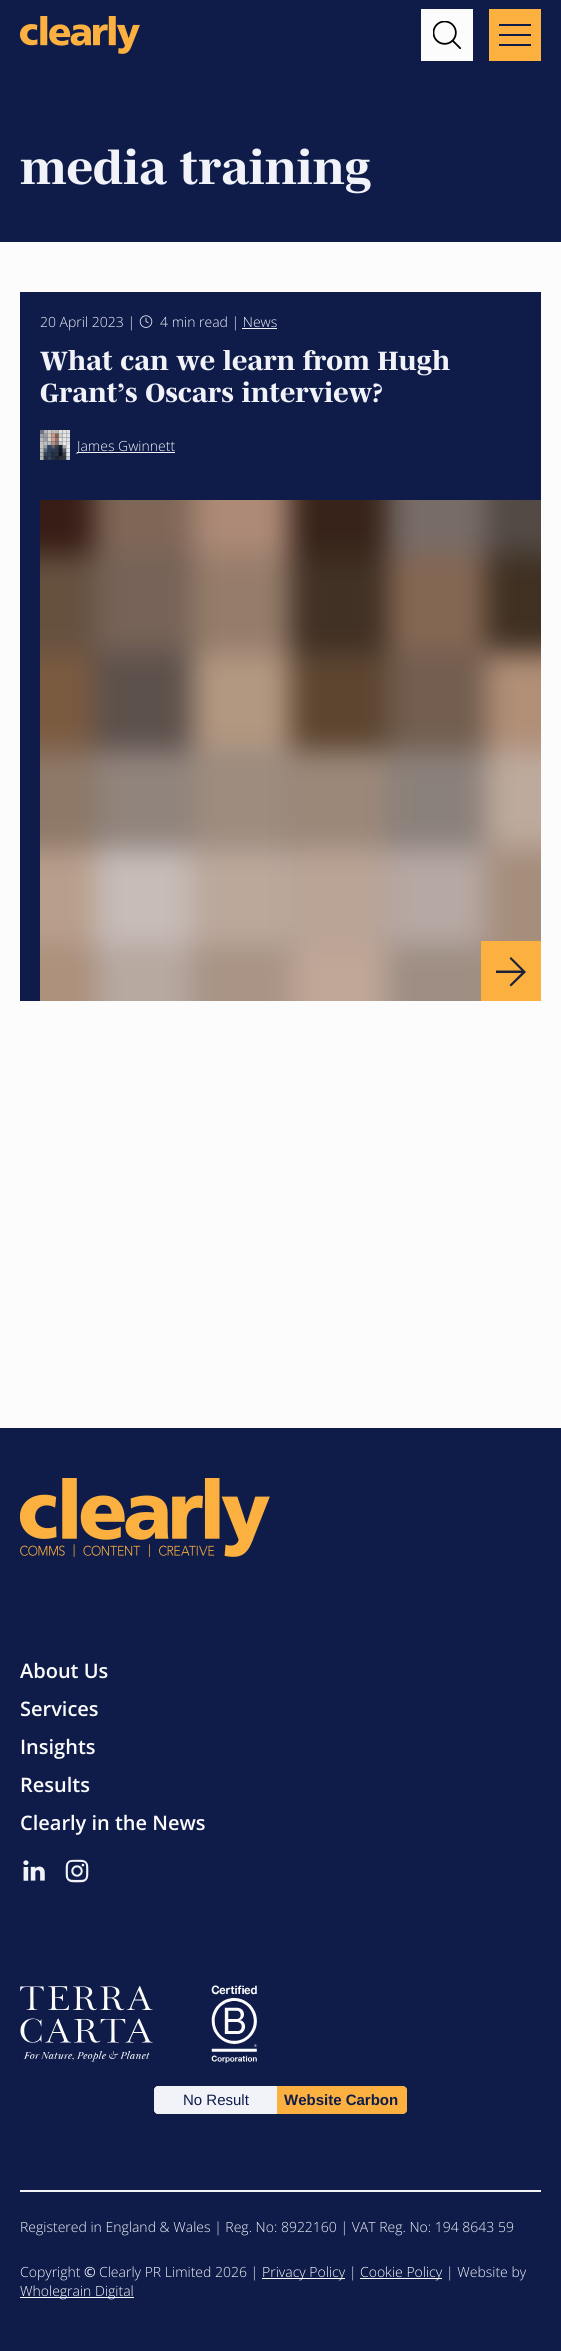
#include <cairo/cairo.h>
#include <math.h>
#include <stddef.h>

typedef struct { double x, y; const char *s; } line_t;
typedef struct { double x, y, w, h; unsigned color; } box_t;
static cairo_t *cr;

static void rgb(unsigned color)
{
	cairo_set_source_rgb(cr, (color >> 16) / 255.0, (color >> 8 & 255) / 255.0, (color & 255) / 255.0);
}

static void image(const char *path, double x, double y, double w, double h)
{
	cairo_surface_t *image = cairo_image_surface_create_from_png(path);
	cairo_save(cr);
	cairo_set_source_surface(cr, image, x, y);
	cairo_rectangle(cr, x, y, w, h);
	cairo_fill(cr);
	cairo_restore(cr);
	cairo_surface_destroy(image);
}

int main(void) {
	cairo_surface_t *surface = cairo_image_surface_create(CAIRO_FORMAT_RGB24, 561, 2351);
	cr = cairo_create(surface);
	cairo_font_options_t *options = cairo_font_options_create();
	cairo_font_options_set_hint_metrics(options, CAIRO_HINT_METRICS_OFF);
	cairo_font_options_set_hint_style(options, CAIRO_HINT_STYLE_NONE);
	cairo_set_font_options(cr, options);
	cairo_set_miter_limit(cr, 4);
	rgb(0xfcfcfc);
	cairo_paint(cr);
	rgb(0x0f1c4a);
	cairo_rectangle(cr, 0, 0, 561, 242);
	cairo_fill(cr);
	image("img/1.png", 20, 16, 120, 38);
	rgb(0xfcfcfc);
	cairo_rectangle(cr, 421, 9, 52, 52);
	cairo_fill(cr);
	image("img/2.png", 433, 21, 28, 28);
	{
		static const box_t items[] = {
			{489, 9, 52, 52, 0xfbb040},
			{499, 24, 32, 2, 0x0f1c4a},
			{499, 34, 32, 2, 0x0f1c4a},
			{499, 44, 32, 2, 0x0f1c4a},
		};
		for (size_t i = 0; i < sizeof items / sizeof *items; i++) {
			rgb(items[i].color);
			cairo_rectangle(cr, items[i].x, items[i].y, items[i].w, items[i].h);
			cairo_fill(cr);
		}
	}
	image("img/3.png", 20, 148, 351, 46);
	cairo_rectangle(cr, 20, 292, 521, 709);
	cairo_fill(cr);
	image("img/4.png", 139, 315, 14, 13);
	rgb(0xf1f3f9);
	cairo_rectangle(cr, 242, 328, 35, 1);
	cairo_fill(cr);
	image("img/5.png", 40, 350, 410, 26);
	image("img/6.png", 40, 381, 342, 22);
	image("img/7.png", 40, 430, 30, 30);
	cairo_rectangle(cr, 77, 452, 98, 1);
	cairo_fill(cr);
	image("img/8.png", 40, 500, 501, 501);
	rgb(0xfbb040);
	cairo_rectangle(cr, 481, 941, 60, 60);
	cairo_fill(cr);
	rgb(0x1a2138);
	cairo_new_path(cr);
	cairo_move_to(cr, 511, 986.5);
	cairo_line_to(cr, 509.5, 985);
	cairo_line_to(cr, 521.5, 973);
	cairo_line_to(cr, 496, 973);
	cairo_line_to(cr, 496, 970.5);
	cairo_line_to(cr, 521.5, 970.5);
	cairo_line_to(cr, 509.5, 958.5);
	cairo_line_to(cr, 511, 957);
	cairo_line_to(cr, 526, 972);
	cairo_close_path(cr);
	cairo_fill(cr);
	rgb(0x0f1c4a);
	cairo_rectangle(cr, 0, 1428, 561, 923);
	cairo_fill(cr);
	image("img/9.png", 20, 1478, 250, 79);
	image("img/10.png", 23, 1860, 22, 21);
	image("img/11.png", 65, 1859, 24, 24);
	image("img/12.png", 20, 1986, 133, 76);
	image("img/13.png", 211, 1985, 46, 78);
	rgb(0xf1f3f9);
	cairo_new_path(cr);
	cairo_move_to(cr, 159, 2086);
	cairo_line_to(cr, 277, 2086);
	cairo_line_to(cr, 277, 2114);
	cairo_line_to(cr, 159, 2114);
	cairo_curve_to(cr, 156, 2114, 154, 2112, 154, 2109);
	cairo_line_to(cr, 154, 2091);
	cairo_curve_to(cr, 154, 2088, 156, 2086, 159, 2086);
	cairo_close_path(cr);
	cairo_fill(cr);
	cairo_set_fill_rule(cr, CAIRO_FILL_RULE_EVEN_ODD);
	cairo_new_path(cr);
	cairo_move_to(cr, 158, 2086);
	cairo_line_to(cr, 277, 2086);
	cairo_line_to(cr, 277, 2114);
	cairo_line_to(cr, 158, 2114);
	cairo_curve_to(cr, 156, 2114, 154, 2112, 154, 2110);
	cairo_line_to(cr, 154, 2090);
	cairo_curve_to(cr, 154, 2088, 156, 2086, 158, 2086);
	cairo_close_path(cr);
	cairo_move_to(cr, 158, 2087);
	cairo_line_to(cr, 277, 2087);
	cairo_line_to(cr, 277, 2113);
	cairo_line_to(cr, 158, 2113);
	cairo_curve_to(cr, 157, 2113, 155, 2111, 155, 2110);
	cairo_line_to(cr, 155, 2090);
	cairo_curve_to(cr, 155, 2089, 157, 2087, 158, 2087);
	cairo_close_path(cr);
	cairo_fill(cr);
	rgb(0xfbb040);
	cairo_new_path(cr);
	cairo_move_to(cr, 277, 2086);
	cairo_line_to(cr, 402, 2086);
	cairo_curve_to(cr, 405, 2086, 407, 2088, 407, 2091);
	cairo_line_to(cr, 407, 2109);
	cairo_curve_to(cr, 407, 2112, 405, 2114, 402, 2114);
	cairo_line_to(cr, 277, 2114);
	cairo_close_path(cr);
	cairo_fill(cr);
	cairo_new_path(cr);
	cairo_move_to(cr, 277, 2086);
	cairo_line_to(cr, 402, 2086);
	cairo_curve_to(cr, 405, 2086, 407, 2088, 407, 2090);
	cairo_line_to(cr, 407, 2110);
	cairo_curve_to(cr, 407, 2112, 405, 2114, 402, 2114);
	cairo_line_to(cr, 277, 2114);
	cairo_close_path(cr);
	cairo_move_to(cr, 277, 2087);
	cairo_line_to(cr, 402, 2087);
	cairo_curve_to(cr, 404, 2087, 406, 2089, 406, 2090);
	cairo_line_to(cr, 406, 2110);
	cairo_curve_to(cr, 406, 2111, 404, 2113, 402, 2113);
	cairo_line_to(cr, 277, 2113);
	cairo_close_path(cr);
	cairo_fill(cr);
	{
		static const box_t items[] = {
			{20, 2190, 521, 2, 0xf1f3f9},
			{262, 2278, 83, 1, 0xfcfcfc},
			{360, 2278, 82, 1, 0xfcfcfc},
			{20, 2297, 114, 1, 0xfcfcfc},
		};
		for (size_t i = 0; i < sizeof items / sizeof *items; i++) {
			rgb(items[i].color);
			cairo_rectangle(cr, items[i].x, items[i].y, items[i].w, items[i].h);
			cairo_fill(cr);
		}
	}
	cairo_select_font_face(cr, "Open Sans Light", CAIRO_FONT_SLANT_NORMAL, CAIRO_FONT_WEIGHT_NORMAL);
	cairo_set_font_size(cr, 14);
	rgb(0xf1f3f9);
	{
		static const line_t items[] = {
			{40, 327, "20 April 2023 |"},
			{160, 327, "4 min read | News"},
			{77, 451, "James Gwinnett"},
		};
		for (size_t i = 0; i < sizeof items / sizeof *items; i++) {
			cairo_move_to(cr, items[i].x, items[i].y);
			cairo_show_text(cr, items[i].s);
		}
	}
	cairo_select_font_face(cr, "Open Sans SemiBold", CAIRO_FONT_SLANT_NORMAL, CAIRO_FONT_WEIGHT_NORMAL);
	cairo_set_font_size(cr, 20);
	rgb(0xfcfcfc);
	{
		static const line_t items[] = {
			{20, 1678, "About Us"},
			{20, 1716, "Services"},
			{20, 1754, "Insights"},
			{20, 1792, "Results"},
			{20, 1830, "Clearly in the News"},
		};
		for (size_t i = 0; i < sizeof items / sizeof *items; i++) {
			cairo_move_to(cr, items[i].x, items[i].y);
			cairo_show_text(cr, items[i].s);
		}
	}
	cairo_select_font_face(cr, "Liberation Sans", CAIRO_FONT_SLANT_NORMAL, CAIRO_FONT_WEIGHT_NORMAL);
	cairo_set_font_size(cr, 15);
	rgb(0x0f1c4a);
	cairo_move_to(cr, 183, 2105);
	cairo_show_text(cr, "No Result");
	cairo_select_font_face(cr, "Liberation Sans", CAIRO_FONT_SLANT_NORMAL, CAIRO_FONT_WEIGHT_BOLD);
	cairo_move_to(cr, 284, 2105);
	cairo_show_text(cr, "Website Carbon");
	cairo_select_font_face(cr, "Open Sans Light", CAIRO_FONT_SLANT_NORMAL, CAIRO_FONT_WEIGHT_NORMAL);
	cairo_set_font_size(cr, 14);
	rgb(0xf1f3f9);
	cairo_move_to(cr, 20, 2232);
	cairo_show_text(cr, "Registered in England & Wales | Reg. No: 8922160 | VAT Reg. No: 194 8643 59");
	cairo_move_to(cr, 20, 2277);
	cairo_show_text(cr, "Copyright");
	cairo_select_font_face(cr, "Noto Sans", CAIRO_FONT_SLANT_NORMAL, CAIRO_FONT_WEIGHT_NORMAL);
	cairo_move_to(cr, 84, 2277);
	cairo_show_text(cr, "©");
	cairo_select_font_face(cr, "Open Sans Light", CAIRO_FONT_SLANT_NORMAL, CAIRO_FONT_WEIGHT_NORMAL);
	cairo_move_to(cr, 99, 2277);
	cairo_show_text(cr, "Clearly PR Limited 2026 |");
	rgb(0xfcfcfc);
	cairo_move_to(cr, 262, 2277);
	cairo_show_text(cr, "Privacy Policy");
	rgb(0xf1f3f9);
	cairo_move_to(cr, 349, 2277);
	cairo_show_text(cr, "|");
	rgb(0xfcfcfc);
	cairo_move_to(cr, 360, 2277);
	cairo_show_text(cr, "Cookie Policy");
	rgb(0xf1f3f9);
	cairo_move_to(cr, 446, 2277);
	cairo_show_text(cr, "| Website by");
	rgb(0xfcfcfc);
	cairo_move_to(cr, 20, 2296);
	cairo_show_text(cr, "Wholegrain Digital");
	cairo_surface_write_to_png(surface, "page.png");
	cairo_font_options_destroy(options);
	cairo_destroy(cr);
	cairo_surface_destroy(surface);
	return 0;
}
